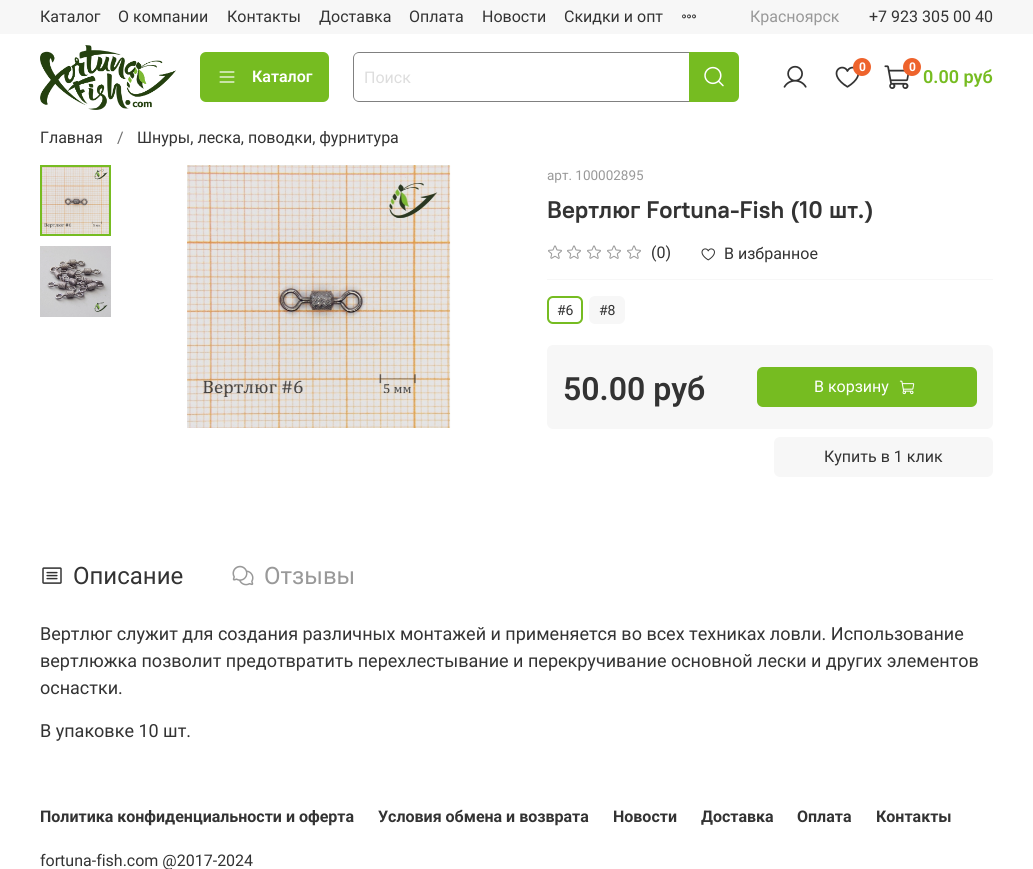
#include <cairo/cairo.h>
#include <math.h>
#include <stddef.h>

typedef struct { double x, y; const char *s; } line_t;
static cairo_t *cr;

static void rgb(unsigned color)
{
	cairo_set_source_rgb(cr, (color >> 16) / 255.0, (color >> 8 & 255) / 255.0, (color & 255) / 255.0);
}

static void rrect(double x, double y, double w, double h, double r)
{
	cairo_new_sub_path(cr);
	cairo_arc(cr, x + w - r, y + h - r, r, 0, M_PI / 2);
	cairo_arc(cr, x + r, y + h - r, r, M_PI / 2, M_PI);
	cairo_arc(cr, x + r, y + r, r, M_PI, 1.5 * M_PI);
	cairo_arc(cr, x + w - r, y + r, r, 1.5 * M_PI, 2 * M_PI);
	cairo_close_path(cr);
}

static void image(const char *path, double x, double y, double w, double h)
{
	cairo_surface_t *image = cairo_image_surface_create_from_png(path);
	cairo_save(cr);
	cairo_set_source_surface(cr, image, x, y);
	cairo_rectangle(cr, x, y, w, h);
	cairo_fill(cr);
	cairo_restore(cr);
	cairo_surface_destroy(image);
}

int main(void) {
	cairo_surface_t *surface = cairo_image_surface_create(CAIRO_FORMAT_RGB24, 1033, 869);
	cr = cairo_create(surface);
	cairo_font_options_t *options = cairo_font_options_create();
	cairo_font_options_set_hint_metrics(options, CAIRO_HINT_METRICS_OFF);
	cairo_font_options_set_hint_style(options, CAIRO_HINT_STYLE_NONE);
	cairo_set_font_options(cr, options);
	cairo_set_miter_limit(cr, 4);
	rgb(0xffffff);
	cairo_paint(cr);
	rgb(0xf7f7f7);
	cairo_rectangle(cr, 0, 0, 1033, 34);
	cairo_fill(cr);
	image("img/1.png", 682, 14, 14, 5);
	image("img/2.png", 40, 45, 136, 65);
	rgb(0x76bc21);
	rrect(200, 52, 129, 50, 6);
	cairo_fill(cr);
	image("img/3.png", 219, 71, 16, 12);
	rgb(0x808080);
	cairo_set_fill_rule(cr, CAIRO_FILL_RULE_EVEN_ODD);
	cairo_new_path(cr);
	cairo_move_to(cr, 359, 52);
	cairo_line_to(cr, 689, 52);
	cairo_line_to(cr, 689, 102);
	cairo_line_to(cr, 359, 102);
	cairo_curve_to(cr, 356, 102, 353, 99, 353, 96);
	cairo_line_to(cr, 353, 58);
	cairo_curve_to(cr, 353, 55, 356, 52, 359, 52);
	cairo_close_path(cr);
	cairo_move_to(cr, 359, 53);
	cairo_line_to(cr, 689, 53);
	cairo_line_to(cr, 689, 101);
	cairo_line_to(cr, 359, 101);
	cairo_curve_to(cr, 356, 101, 354, 99, 354, 96);
	cairo_line_to(cr, 354, 58);
	cairo_curve_to(cr, 354, 55, 356, 53, 359, 53);
	cairo_close_path(cr);
	cairo_fill(cr);
	rgb(0x76bc21);
	cairo_new_path(cr);
	cairo_move_to(cr, 689, 52);
	cairo_line_to(cr, 733, 52);
	cairo_curve_to(cr, 736.5, 52, 739, 54.5, 739, 58);
	cairo_line_to(cr, 739, 96);
	cairo_curve_to(cr, 739, 99.5, 736.5, 102, 733, 102);
	cairo_line_to(cr, 689, 102);
	cairo_close_path(cr);
	cairo_fill(cr);
	image("img/4.png", 704, 66, 20, 21);
	image("img/5.png", 783, 65, 24, 23);
	image("img/6.png", 835, 66, 24, 22);
	rgb(0xee632c);
	cairo_arc(cr, 862, 67, 9, 0, 2 * M_PI);
	cairo_fill(cr);
	image("img/7.png", 884, 65, 25, 24);
	cairo_arc(cr, 912, 67, 9, 0, 2 * M_PI);
	cairo_fill(cr);
	image("img/8.png", 42, 167, 67, 67);
	cairo_rectangle(cr, 41, 166, 69, 69);
	rgb(0x76bc21);
	cairo_stroke(cr);
	image("img/9.png", 40, 246, 71, 71);
	image("img/10.png", 187, 165, 264, 263);
	rgb(0xf7f7f7);
	cairo_rectangle(cr, 547, 279, 446, 1);
	cairo_fill(cr);
	image("img/11.png", 548, 245, 14, 14);
	image("img/11.png", 567, 245, 14, 14);
	image("img/11.png", 587, 245, 14, 14);
	image("img/11.png", 607, 245, 14, 14);
	image("img/11.png", 627, 245, 14, 14);
	image("img/12.png", 701, 248, 14, 13);
	rrect(548, 297, 34, 26, 5);
	rgb(0x76bc21);
	cairo_stroke(cr);
	rgb(0xf7f7f7);
	rrect(589, 296, 36, 28, 6);
	cairo_fill(cr);
	rrect(547, 345, 446, 84, 6);
	cairo_fill(cr);
	rgb(0x76bc21);
	rrect(757, 367, 220, 40, 6);
	cairo_fill(cr);
	image("img/13.png", 899, 380, 16, 15);
	rgb(0xf7f7f7);
	rrect(774, 437, 219, 40, 6);
	cairo_fill(cr);
	image("img/14.png", 42, 567, 20, 17);
	image("img/15.png", 232, 565, 22, 21);
	cairo_select_font_face(cr, "Roboto", CAIRO_FONT_SLANT_NORMAL, CAIRO_FONT_WEIGHT_NORMAL);
	cairo_set_font_size(cr, 16);
	rgb(0x333333);
	{
		static const line_t items[] = {
			{40, 22, "Каталог"},
			{118, 22, "О компании"},
			{227, 22, "Контакты"},
			{319, 22, "Доставка"},
			{409, 22, "Оплата"},
			{482, 22, "Новости"},
			{564, 22, "Скидки и опт"},
		};
		for (size_t i = 0; i < sizeof items / sizeof *items; i++) {
			cairo_move_to(cr, items[i].x, items[i].y);
			cairo_show_text(cr, items[i].s);
		}
	}
	rgb(0x999999);
	cairo_move_to(cr, 750, 22);
	cairo_show_text(cr, "Красноярск");
	rgb(0x333333);
	cairo_move_to(cr, 869, 22);
	cairo_show_text(cr, "+7 923 305 00 40");
	cairo_select_font_face(cr, "Roboto SemiBold", CAIRO_FONT_SLANT_NORMAL, CAIRO_FONT_WEIGHT_NORMAL);
	rgb(0xffffff);
	cairo_move_to(cr, 252, 82);
	cairo_show_text(cr, "Каталог");
	cairo_select_font_face(cr, "Roboto", CAIRO_FONT_SLANT_NORMAL, CAIRO_FONT_WEIGHT_NORMAL);
	rgb(0xdddddd);
	cairo_move_to(cr, 364, 83);
	cairo_show_text(cr, "Поиск");
	cairo_select_font_face(cr, "Roboto", CAIRO_FONT_SLANT_NORMAL, CAIRO_FONT_WEIGHT_BOLD);
	cairo_set_font_size(cr, 12);
	rgb(0xffffff);
	cairo_move_to(cr, 859, 71);
	cairo_show_text(cr, "0");
	cairo_move_to(cr, 909, 71);
	cairo_show_text(cr, "0");
	cairo_select_font_face(cr, "Roboto SemiBold", CAIRO_FONT_SLANT_NORMAL, CAIRO_FONT_WEIGHT_NORMAL);
	cairo_set_font_size(cr, 18);
	rgb(0x76bc21);
	cairo_move_to(cr, 923, 83);
	cairo_show_text(cr, "0.00 руб");
	cairo_select_font_face(cr, "Roboto", CAIRO_FONT_SLANT_NORMAL, CAIRO_FONT_WEIGHT_NORMAL);
	cairo_set_font_size(cr, 16);
	rgb(0x333333);
	cairo_move_to(cr, 40, 143);
	cairo_show_text(cr, "Главная");
	rgb(0x707070);
	cairo_move_to(cr, 117, 143);
	cairo_show_text(cr, "/");
	rgb(0x333333);
	cairo_move_to(cr, 137, 143);
	cairo_show_text(cr, "Шнуры, леска, поводки, фурнитура");
	cairo_set_font_size(cr, 13.5);
	rgb(0x999999);
	cairo_move_to(cr, 547, 180);
	cairo_show_text(cr, "арт. 100002895");
	cairo_select_font_face(cr, "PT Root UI", CAIRO_FONT_SLANT_NORMAL, CAIRO_FONT_WEIGHT_BOLD);
	cairo_set_font_size(cr, 24);
	rgb(0x333333);
	cairo_move_to(cr, 547, 218);
	cairo_show_text(cr, "Вертлюг Fortuna-Fish (10 шт.)");
	cairo_select_font_face(cr, "Roboto", CAIRO_FONT_SLANT_NORMAL, CAIRO_FONT_WEIGHT_NORMAL);
	cairo_set_font_size(cr, 16);
	cairo_move_to(cr, 651, 258);
	cairo_show_text(cr, "(0)");
	cairo_move_to(cr, 724, 259);
	cairo_show_text(cr, "В избранное");
	cairo_set_font_size(cr, 14);
	cairo_move_to(cr, 557, 315);
	cairo_show_text(cr, "#6");
	cairo_move_to(cr, 599, 315);
	cairo_show_text(cr, "#8");
	cairo_select_font_face(cr, "Roboto SemiBold", CAIRO_FONT_SLANT_NORMAL, CAIRO_FONT_WEIGHT_NORMAL);
	cairo_set_font_size(cr, 32);
	cairo_move_to(cr, 563, 400);
	cairo_show_text(cr, "50.00 руб");
	cairo_select_font_face(cr, "Roboto", CAIRO_FONT_SLANT_NORMAL, CAIRO_FONT_WEIGHT_NORMAL);
	cairo_set_font_size(cr, 16);
	rgb(0xffffff);
	cairo_move_to(cr, 814, 392);
	cairo_show_text(cr, "В корзину");
	rgb(0x333333);
	cairo_move_to(cr, 824, 462);
	cairo_show_text(cr, "Купить в 1 клик");
	cairo_set_font_size(cr, 24);
	cairo_move_to(cr, 73, 584);
	cairo_show_text(cr, "Описание");
	rgb(0x999999);
	cairo_move_to(cr, 264, 584);
	cairo_show_text(cr, "Отзывы");
	cairo_set_font_size(cr, 18);
	rgb(0x333333);
	{
		static const line_t items[] = {
			{40, 640, "Вертлюг служит для создания различных монтажей и применяется во всех техниках ловли. Использование"},
			{40, 667, "вертлюжка позволит предотвратить перехлестывание и перекручивание основной лески и других элементов"},
			{40, 694, "оснастки."},
			{40, 737, "В упаковке 10 шт."},
		};
		for (size_t i = 0; i < sizeof items / sizeof *items; i++) {
			cairo_move_to(cr, items[i].x, items[i].y);
			cairo_show_text(cr, items[i].s);
		}
	}
	cairo_select_font_face(cr, "Roboto", CAIRO_FONT_SLANT_NORMAL, CAIRO_FONT_WEIGHT_BOLD);
	cairo_set_font_size(cr, 16);
	{
		static const line_t items[] = {
			{40, 822, "Политика конфиденциальности и оферта"},
			{378, 822, "Условия обмена и возврата"},
			{613, 822, "Новости"},
			{701, 822, "Доставка"},
			{797, 822, "Оплата"},
			{876, 822, "Контакты"},
		};
		for (size_t i = 0; i < sizeof items / sizeof *items; i++) {
			cairo_move_to(cr, items[i].x, items[i].y);
			cairo_show_text(cr, items[i].s);
		}
	}
	cairo_select_font_face(cr, "Roboto", CAIRO_FONT_SLANT_NORMAL, CAIRO_FONT_WEIGHT_NORMAL);
	cairo_move_to(cr, 40, 866);
	cairo_show_text(cr, "fortuna-fish.com @2017-2024");
	cairo_surface_write_to_png(surface, "page.png");
	cairo_font_options_destroy(options);
	cairo_destroy(cr);
	cairo_surface_destroy(surface);
	return 0;
}
